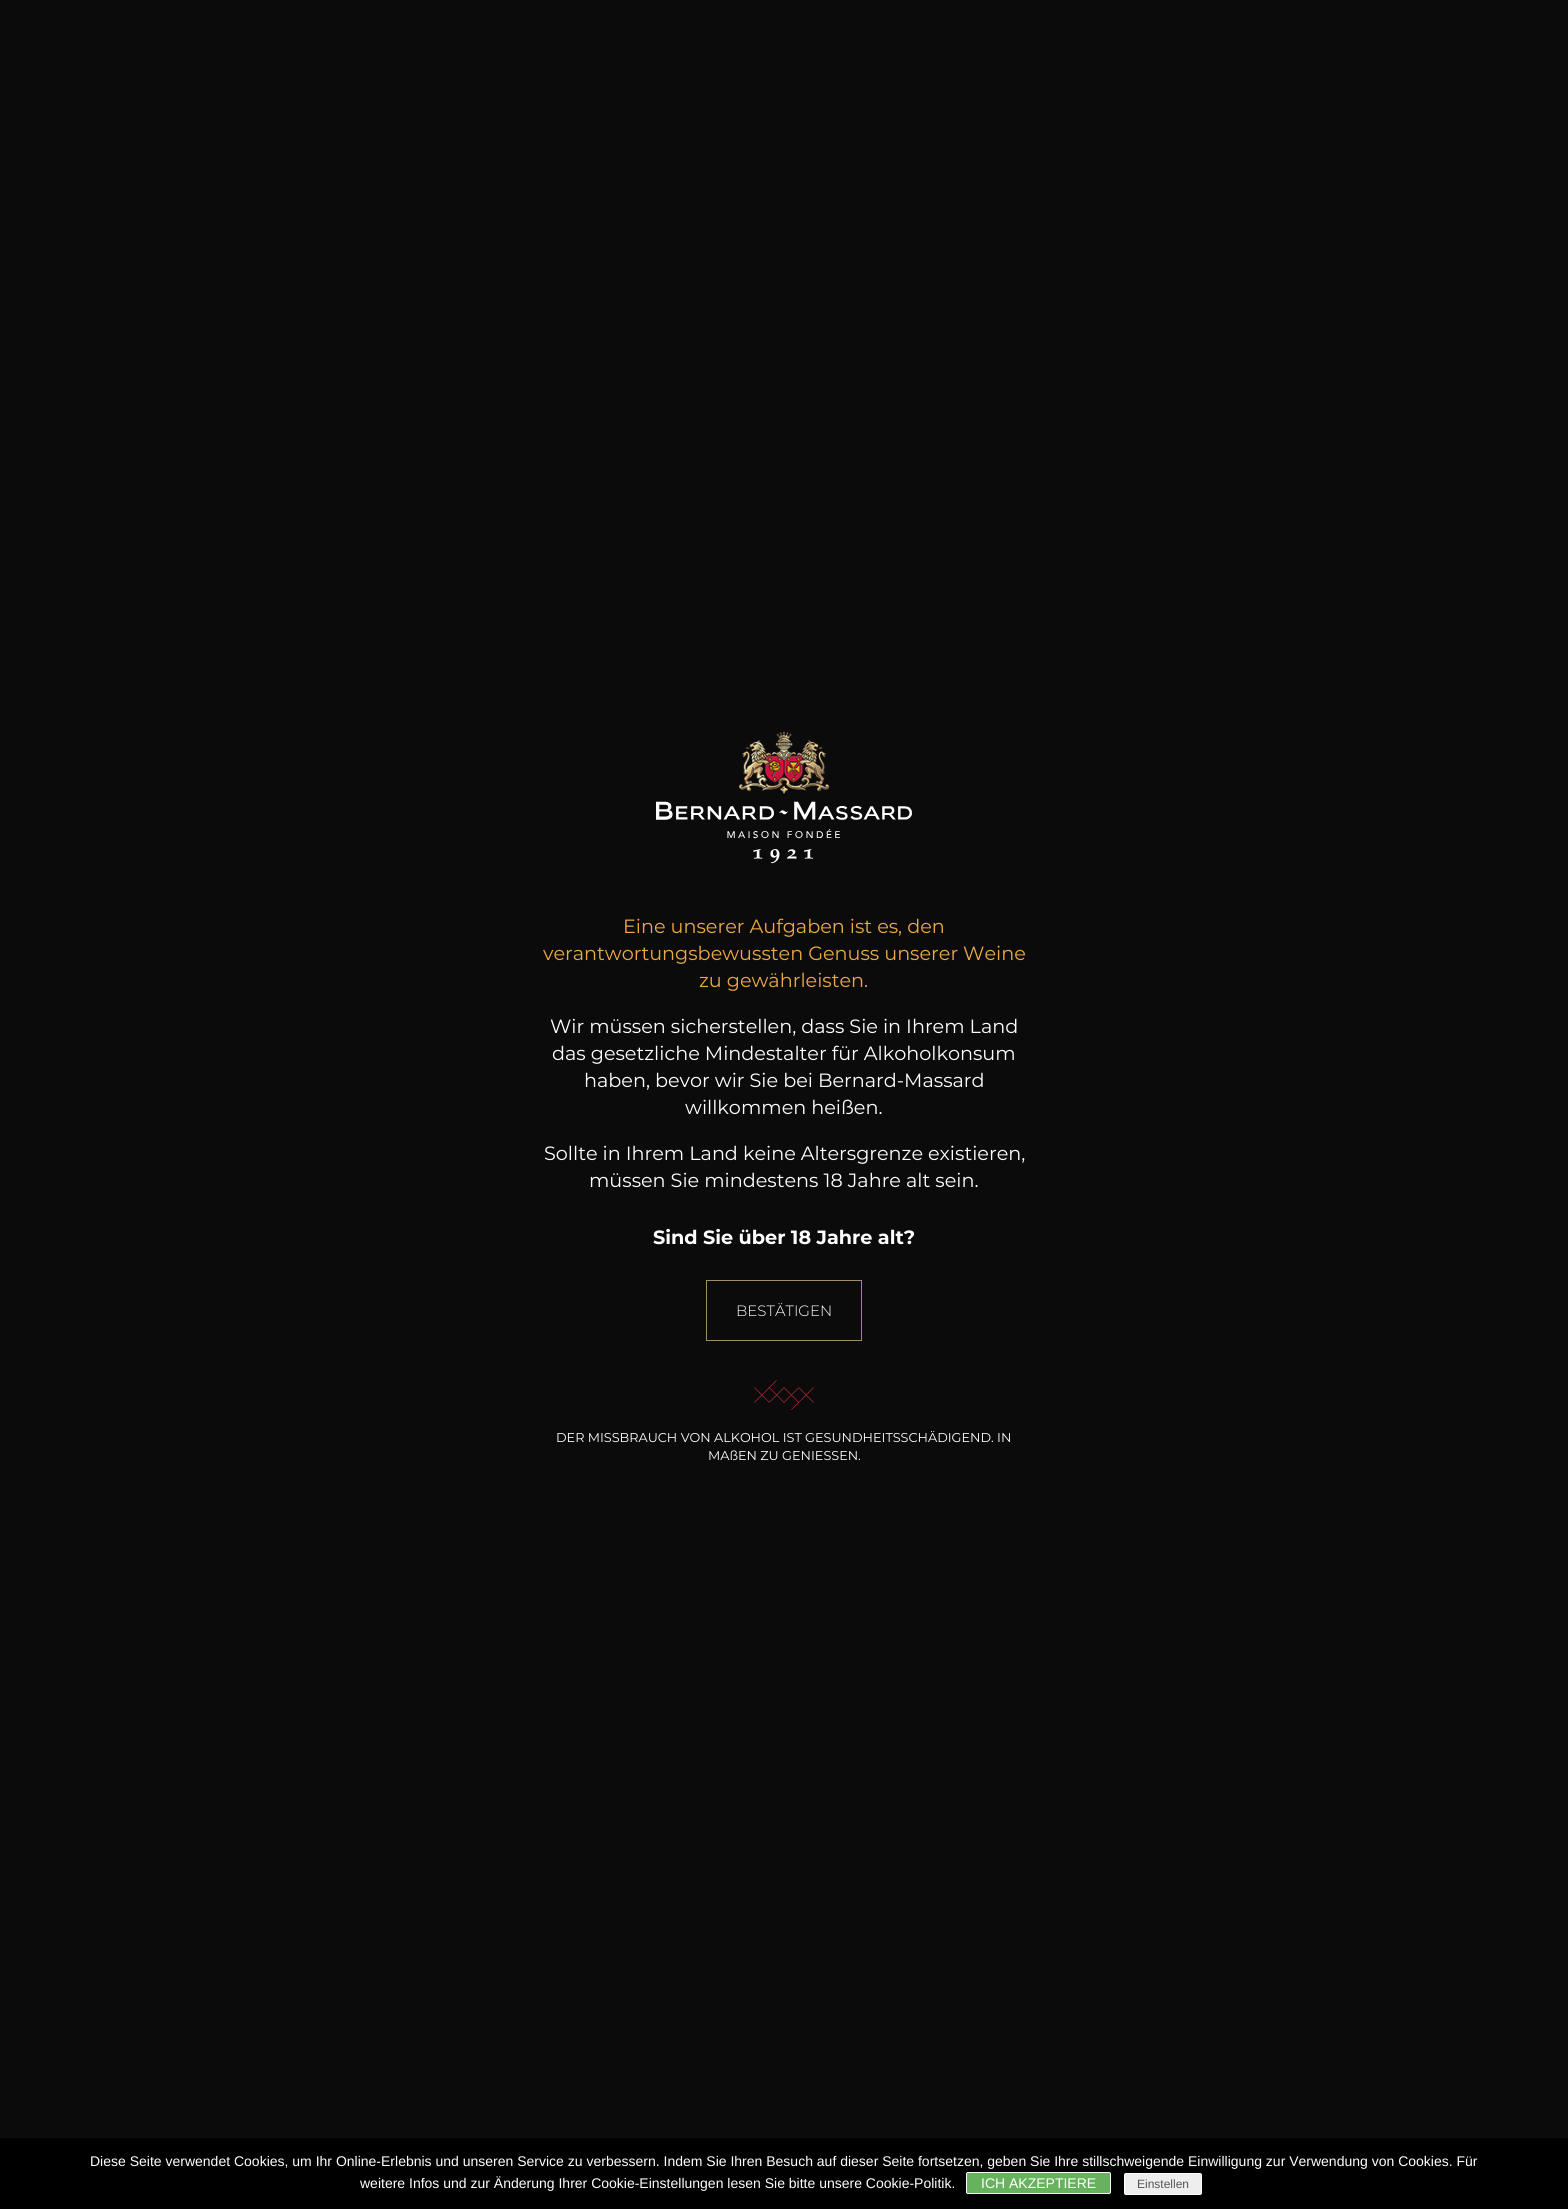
#include <cairo/cairo.h>
#include <math.h>
#include <stddef.h>

typedef struct { double x, y; const char *s; } line_t;
static cairo_t *cr;

static void rgb(unsigned color)
{
	cairo_set_source_rgb(cr, (color >> 16) / 255.0, (color >> 8 & 255) / 255.0, (color & 255) / 255.0);
}

static void rrect(double x, double y, double w, double h, double r)
{
	cairo_new_sub_path(cr);
	cairo_arc(cr, x + w - r, y + h - r, r, 0, M_PI / 2);
	cairo_arc(cr, x + r, y + h - r, r, M_PI / 2, M_PI);
	cairo_arc(cr, x + r, y + r, r, M_PI, 1.5 * M_PI);
	cairo_arc(cr, x + w - r, y + r, r, 1.5 * M_PI, 2 * M_PI);
	cairo_close_path(cr);
}

static void image(const char *path, double x, double y, double w, double h)
{
	cairo_surface_t *image = cairo_image_surface_create_from_png(path);
	cairo_save(cr);
	cairo_set_source_surface(cr, image, x, y);
	cairo_rectangle(cr, x, y, w, h);
	cairo_fill(cr);
	cairo_restore(cr);
	cairo_surface_destroy(image);
}

int main(void) {
	cairo_surface_t *surface = cairo_image_surface_create(CAIRO_FORMAT_RGB24, 1568, 2209);
	cr = cairo_create(surface);
	cairo_font_options_t *options = cairo_font_options_create();
	cairo_font_options_set_hint_metrics(options, CAIRO_HINT_METRICS_OFF);
	cairo_font_options_set_hint_style(options, CAIRO_HINT_STYLE_NONE);
	cairo_set_font_options(cr, options);
	cairo_set_miter_limit(cr, 4);
	rgb(0x0b0b0b);
	cairo_paint(cr);
	image("img/1.png", 656, 731, 256, 133);
	cairo_rectangle(cr, 706.5, 1280.5, 155, 60);
	rgb(0xa48d64);
	cairo_set_line_width(cr, 1);
	cairo_stroke(cr);
	image("img/2.png", 754, 1380, 60, 30);
	rgb(0x000000);
	cairo_rectangle(cr, 0, 2138, 1568, 71);
	cairo_fill(cr);
	rgb(0x68b15f);
	rrect(966.5, 2172.5, 144, 21, 1.5);
	cairo_fill_preserve(cr);
	rgb(0xffffff);
	cairo_stroke(cr);
	rgb(0xeeeeee);
	rrect(1124.5, 2173.5, 77, 21, 1.5);
	cairo_fill_preserve(cr);
	rgb(0xffffff);
	cairo_stroke(cr);
	cairo_select_font_face(cr, "Montserrat", CAIRO_FONT_SLANT_NORMAL, CAIRO_FONT_WEIGHT_NORMAL);
	cairo_set_font_size(cr, 19.2);
	rgb(0xeca844);
	{
		static const line_t items[] = {
			{623, 933, "Eine unserer Aufgaben ist es, den"},
			{543, 960, "verantwortungsbewussten Genuss unserer Weine"},
			{699, 987, "zu gewährleisten."},
		};
		for (size_t i = 0; i < sizeof items / sizeof *items; i++) {
			cairo_move_to(cr, items[i].x, items[i].y);
			cairo_show_text(cr, items[i].s);
		}
	}
	rgb(0xffffff);
	{
		static const line_t items[] = {
			{550, 1033, "Wir müssen sicherstellen, dass Sie in Ihrem Land"},
			{552, 1060, "das gesetzliche Mindestalter für Alkoholkonsum"},
			{584, 1087, "haben, bevor wir Sie bei Bernard-Massard"},
			{685, 1114, "willkommen heißen."},
			{544, 1160, "Sollte in Ihrem Land keine Altersgrenze existieren,"},
			{589, 1187, "müssen Sie mindestens 18 Jahre alt sein."},
		};
		for (size_t i = 0; i < sizeof items / sizeof *items; i++) {
			cairo_move_to(cr, items[i].x, items[i].y);
			cairo_show_text(cr, items[i].s);
		}
	}
	cairo_select_font_face(cr, "Montserrat", CAIRO_FONT_SLANT_NORMAL, CAIRO_FONT_WEIGHT_BOLD);
	cairo_move_to(cr, 653, 1244);
	cairo_show_text(cr, "Sind Sie über 18 Jahre alt?");
	cairo_select_font_face(cr, "Montserrat Light", CAIRO_FONT_SLANT_NORMAL, CAIRO_FONT_WEIGHT_NORMAL);
	cairo_set_font_size(cr, 15);
	cairo_move_to(cr, 736, 1316);
	cairo_show_text(cr, "BESTÄTIGEN");
	cairo_select_font_face(cr, "Montserrat", CAIRO_FONT_SLANT_NORMAL, CAIRO_FONT_WEIGHT_NORMAL);
	cairo_set_font_size(cr, 12.8);
	cairo_move_to(cr, 556, 1442);
	cairo_show_text(cr, "DER MISSBRAUCH VON ALKOHOL IST GESUNDHEITSSCHÄDIGEND. IN");
	cairo_move_to(cr, 708, 1460);
	cairo_show_text(cr, "MAßEN ZU GENIESSEN.");
	cairo_select_font_face(cr, "Liberation Sans", CAIRO_FONT_SLANT_NORMAL, CAIRO_FONT_WEIGHT_NORMAL);
	cairo_set_font_size(cr, 14);
	{
		static const line_t items[] = {
			{90, 2166, "Diese Seite verwendet Cookies, um Ihr Online-Erlebnis und unseren Service zu verbessern. Indem Sie Ihren Besuch auf dieser Seite fortsetzen, geben Sie Ihre stillschweigende Einwilligung zur Verwendung von Cookies. Für"},
			{360, 2188, "weitere Infos und zur Änderung Ihrer Cookie-Einstellungen lesen Sie bitte unsere Cookie-Politik."},
			{981, 2188, "ICH AKZEPTIERE"},
		};
		for (size_t i = 0; i < sizeof items / sizeof *items; i++) {
			cairo_move_to(cr, items[i].x, items[i].y);
			cairo_show_text(cr, items[i].s);
		}
	}
	cairo_set_font_size(cr, 12);
	rgb(0x555555);
	cairo_move_to(cr, 1137, 2188);
	cairo_show_text(cr, "Einstellen");
	cairo_surface_write_to_png(surface, "page.png");
	cairo_font_options_destroy(options);
	cairo_destroy(cr);
	cairo_surface_destroy(surface);
	return 0;
}
